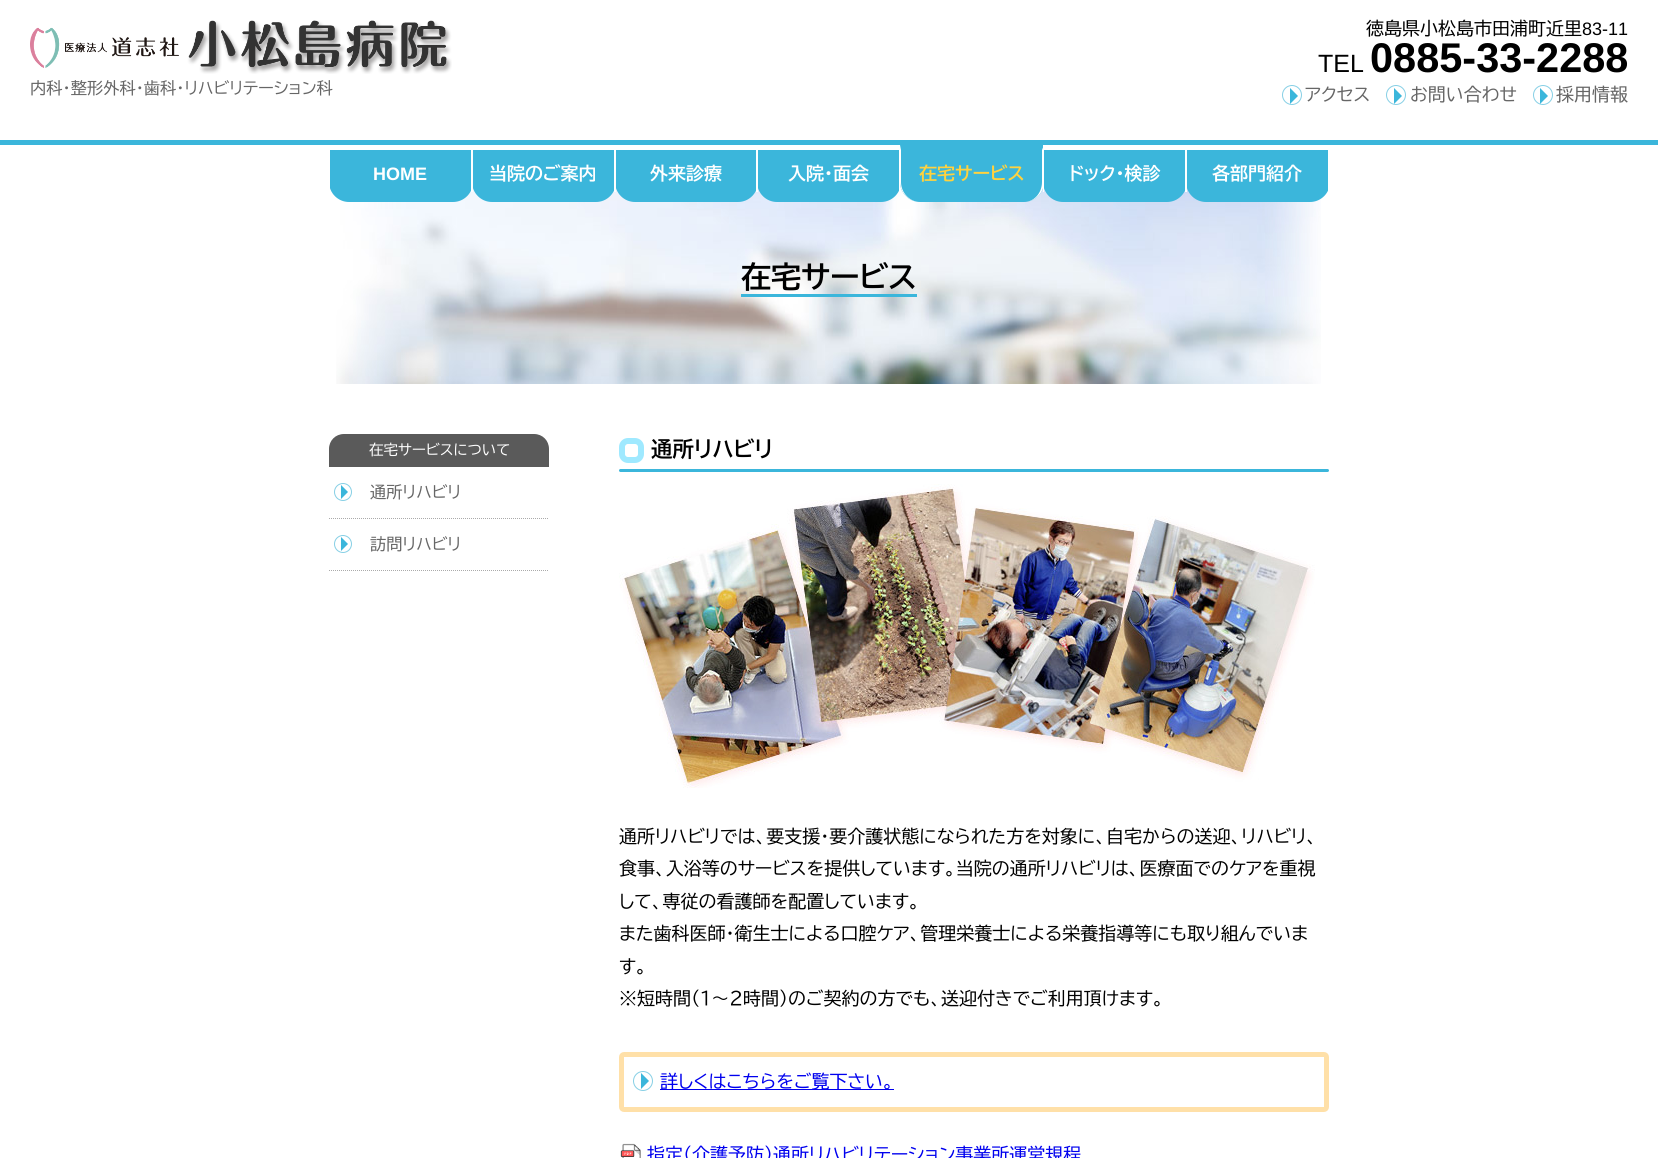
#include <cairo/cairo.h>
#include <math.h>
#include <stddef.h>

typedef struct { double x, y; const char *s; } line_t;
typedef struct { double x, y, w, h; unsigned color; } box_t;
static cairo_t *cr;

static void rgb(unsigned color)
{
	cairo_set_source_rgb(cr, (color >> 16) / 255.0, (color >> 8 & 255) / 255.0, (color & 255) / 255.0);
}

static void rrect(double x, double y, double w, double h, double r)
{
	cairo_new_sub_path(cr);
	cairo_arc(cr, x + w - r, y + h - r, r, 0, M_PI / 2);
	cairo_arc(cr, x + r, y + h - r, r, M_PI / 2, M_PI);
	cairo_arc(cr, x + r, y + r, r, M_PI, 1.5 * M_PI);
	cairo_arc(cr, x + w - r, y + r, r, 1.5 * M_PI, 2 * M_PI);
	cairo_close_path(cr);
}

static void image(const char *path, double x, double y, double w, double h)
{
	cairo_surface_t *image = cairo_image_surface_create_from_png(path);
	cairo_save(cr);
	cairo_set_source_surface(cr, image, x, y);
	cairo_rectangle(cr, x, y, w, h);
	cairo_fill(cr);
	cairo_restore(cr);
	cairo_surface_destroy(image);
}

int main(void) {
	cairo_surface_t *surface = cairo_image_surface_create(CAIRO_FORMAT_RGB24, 1658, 1158);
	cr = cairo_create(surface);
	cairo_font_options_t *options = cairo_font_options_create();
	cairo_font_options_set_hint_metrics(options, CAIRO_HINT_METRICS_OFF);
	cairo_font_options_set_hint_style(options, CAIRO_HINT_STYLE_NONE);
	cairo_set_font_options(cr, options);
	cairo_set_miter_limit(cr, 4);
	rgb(0xffffff);
	cairo_paint(cr);
	image("img/1.png", 30, 20, 422, 54);
	cairo_arc(cr, 1292, 95, 9.5, 0, 2 * M_PI);
	rgb(0x86cfe5);
	cairo_set_line_width(cr, 1);
	cairo_stroke(cr);
	rgb(0x3bb6db);
	cairo_new_path(cr);
	cairo_move_to(cr, 1290, 104);
	cairo_line_to(cr, 1290, 88);
	cairo_line_to(cr, 1298, 96);
	cairo_close_path(cr);
	cairo_fill(cr);
	cairo_arc(cr, 1396, 95, 9.5, 0, 2 * M_PI);
	rgb(0x86cfe5);
	cairo_stroke(cr);
	rgb(0x3bb6db);
	cairo_new_path(cr);
	cairo_move_to(cr, 1394, 104);
	cairo_line_to(cr, 1394, 88);
	cairo_line_to(cr, 1402, 96);
	cairo_close_path(cr);
	cairo_fill(cr);
	cairo_arc(cr, 1543, 95, 9.5, 0, 2 * M_PI);
	rgb(0x86cfe5);
	cairo_stroke(cr);
	rgb(0x3bb6db);
	cairo_new_path(cr);
	cairo_move_to(cr, 1540, 104);
	cairo_line_to(cr, 1540, 88);
	cairo_line_to(cr, 1548, 96);
	cairo_close_path(cr);
	cairo_fill(cr);
	cairo_rectangle(cr, 0, 140, 1658, 5);
	cairo_fill(cr);
	image("img/2.png", 336, 188, 985, 196);
	cairo_new_path(cr);
	cairo_move_to(cr, 329, 145);
	cairo_line_to(cr, 473, 145);
	cairo_line_to(cr, 473, 182);
	cairo_curve_to(cr, 473, 193, 464, 202, 453, 202);
	cairo_line_to(cr, 349, 202);
	cairo_curve_to(cr, 338, 202, 329, 193, 329, 182);
	cairo_close_path(cr);
	cairo_fill(cr);
	{
		static const box_t items[] = {
			{329, 145, 144, 5, 0xffffff},
			{471, 145, 1, 47, 0xffffff},
			{329, 145, 1, 47, 0xffffff},
		};
		for (size_t i = 0; i < sizeof items / sizeof *items; i++) {
			rgb(items[i].color);
			cairo_rectangle(cr, items[i].x, items[i].y, items[i].w, items[i].h);
			cairo_fill(cr);
		}
	}
	rgb(0x3bb6db);
	cairo_new_path(cr);
	cairo_move_to(cr, 472, 145);
	cairo_line_to(cr, 616, 145);
	cairo_line_to(cr, 616, 182);
	cairo_curve_to(cr, 616, 193, 607, 202, 596, 202);
	cairo_line_to(cr, 492, 202);
	cairo_curve_to(cr, 481, 202, 472, 193, 472, 182);
	cairo_close_path(cr);
	cairo_fill(cr);
	{
		static const box_t items[] = {
			{472, 145, 144, 5, 0xffffff},
			{614, 145, 1, 47, 0xffffff},
			{472, 145, 1, 47, 0xffffff},
		};
		for (size_t i = 0; i < sizeof items / sizeof *items; i++) {
			rgb(items[i].color);
			cairo_rectangle(cr, items[i].x, items[i].y, items[i].w, items[i].h);
			cairo_fill(cr);
		}
	}
	rgb(0x3bb6db);
	cairo_new_path(cr);
	cairo_move_to(cr, 615, 145);
	cairo_line_to(cr, 758, 145);
	cairo_line_to(cr, 758, 182);
	cairo_curve_to(cr, 758, 193, 749, 202, 738, 202);
	cairo_line_to(cr, 635, 202);
	cairo_curve_to(cr, 624, 202, 615, 193, 615, 182);
	cairo_close_path(cr);
	cairo_fill(cr);
	{
		static const box_t items[] = {
			{615, 145, 143, 5, 0xffffff},
			{756, 145, 1, 47, 0xffffff},
			{615, 145, 1, 47, 0xffffff},
		};
		for (size_t i = 0; i < sizeof items / sizeof *items; i++) {
			rgb(items[i].color);
			cairo_rectangle(cr, items[i].x, items[i].y, items[i].w, items[i].h);
			cairo_fill(cr);
		}
	}
	rgb(0x3bb6db);
	cairo_new_path(cr);
	cairo_move_to(cr, 757, 145);
	cairo_line_to(cr, 901, 145);
	cairo_line_to(cr, 901, 182);
	cairo_curve_to(cr, 901, 193, 892, 202, 881, 202);
	cairo_line_to(cr, 777, 202);
	cairo_curve_to(cr, 766, 202, 757, 193, 757, 182);
	cairo_close_path(cr);
	cairo_fill(cr);
	{
		static const box_t items[] = {
			{757, 145, 144, 5, 0xffffff},
			{899, 145, 2, 47, 0xffffff},
			{757, 145, 1, 47, 0xffffff},
		};
		for (size_t i = 0; i < sizeof items / sizeof *items; i++) {
			rgb(items[i].color);
			cairo_rectangle(cr, items[i].x, items[i].y, items[i].w, items[i].h);
			cairo_fill(cr);
		}
	}
	rgb(0x3bb6db);
	cairo_new_path(cr);
	cairo_move_to(cr, 900, 145);
	cairo_line_to(cr, 1044, 145);
	cairo_line_to(cr, 1044, 182);
	cairo_curve_to(cr, 1044, 193, 1035, 202, 1024, 202);
	cairo_line_to(cr, 920, 202);
	cairo_curve_to(cr, 909, 202, 900, 193, 900, 182);
	cairo_close_path(cr);
	cairo_fill(cr);
	rgb(0xffffff);
	cairo_new_path(cr);
	cairo_move_to(cr, 1044, 145);
	cairo_line_to(cr, 1042, 150);
	cairo_line_to(cr, 1042, 182);
	cairo_curve_to(cr, 1042, 193, 1034, 202, 1024, 202);
	cairo_curve_to(cr, 1035, 202, 1044, 193, 1044, 182);
	cairo_close_path(cr);
	cairo_fill(cr);
	cairo_new_path(cr);
	cairo_move_to(cr, 901, 150);
	cairo_line_to(cr, 900, 145);
	cairo_line_to(cr, 900, 182);
	cairo_curve_to(cr, 900, 193, 909, 202, 920, 202);
	cairo_curve_to(cr, 910, 202, 901, 193, 901, 182);
	cairo_close_path(cr);
	cairo_fill(cr);
	rgb(0x3bb6db);
	cairo_new_path(cr);
	cairo_move_to(cr, 1043, 145);
	cairo_line_to(cr, 1187, 145);
	cairo_line_to(cr, 1187, 182);
	cairo_curve_to(cr, 1187, 193, 1178, 202, 1167, 202);
	cairo_line_to(cr, 1063, 202);
	cairo_curve_to(cr, 1052, 202, 1043, 193, 1043, 182);
	cairo_close_path(cr);
	cairo_fill(cr);
	{
		static const box_t items[] = {
			{1043, 145, 144, 5, 0xffffff},
			{1185, 145, 1, 47, 0xffffff},
			{1043, 145, 1, 47, 0xffffff},
		};
		for (size_t i = 0; i < sizeof items / sizeof *items; i++) {
			rgb(items[i].color);
			cairo_rectangle(cr, items[i].x, items[i].y, items[i].w, items[i].h);
			cairo_fill(cr);
		}
	}
	rgb(0x3bb6db);
	cairo_new_path(cr);
	cairo_move_to(cr, 1186, 145);
	cairo_line_to(cr, 1330, 145);
	cairo_line_to(cr, 1330, 182);
	cairo_curve_to(cr, 1330, 193, 1321, 202, 1310, 202);
	cairo_line_to(cr, 1206, 202);
	cairo_curve_to(cr, 1195, 202, 1186, 193, 1186, 182);
	cairo_close_path(cr);
	cairo_fill(cr);
	{
		static const box_t items[] = {
			{1186, 145, 144, 5, 0xffffff},
			{1328, 145, 2, 47, 0xffffff},
			{1186, 145, 1, 47, 0xffffff},
			{741, 294, 176, 3, 0x3bb6db},
		};
		for (size_t i = 0; i < sizeof items / sizeof *items; i++) {
			rgb(items[i].color);
			cairo_rectangle(cr, items[i].x, items[i].y, items[i].w, items[i].h);
			cairo_fill(cr);
		}
	}
	rgb(0x5a5a5a);
	cairo_new_path(cr);
	cairo_move_to(cr, 344, 434);
	cairo_line_to(cr, 534, 434);
	cairo_curve_to(cr, 542.5, 434, 549, 440.5, 549, 449);
	cairo_line_to(cr, 549, 467);
	cairo_line_to(cr, 329, 467);
	cairo_line_to(cr, 329, 449);
	cairo_curve_to(cr, 329, 440.5, 335.5, 434, 344, 434);
	cairo_close_path(cr);
	cairo_fill(cr);
	cairo_new_path(cr);
	cairo_move_to(cr, 329, 518.5);
	cairo_line_to(cr, 549, 518.5);
	rgb(0xaaaaaa);
	cairo_set_dash(cr, (double[]){1, 1}, 2, 0);
	cairo_stroke(cr);
	cairo_arc(cr, 343, 492, 8.5, 0, 2 * M_PI);
	rgb(0x86cfe5);
	cairo_set_dash(cr, NULL, 0, 0);
	cairo_stroke(cr);
	rgb(0x3bb6db);
	cairo_new_path(cr);
	cairo_move_to(cr, 341, 499);
	cairo_line_to(cr, 341, 485);
	cairo_line_to(cr, 348, 492);
	cairo_close_path(cr);
	cairo_fill(cr);
	cairo_new_path(cr);
	cairo_move_to(cr, 329, 570.5);
	cairo_line_to(cr, 549, 570.5);
	rgb(0xaaaaaa);
	cairo_set_dash(cr, (double[]){1, 1}, 2, 0);
	cairo_stroke(cr);
	cairo_arc(cr, 343, 544, 8.5, 0, 2 * M_PI);
	rgb(0x86cfe5);
	cairo_set_dash(cr, NULL, 0, 0);
	cairo_stroke(cr);
	rgb(0x3bb6db);
	cairo_new_path(cr);
	cairo_move_to(cr, 341, 551);
	cairo_line_to(cr, 341, 537);
	cairo_line_to(cr, 348, 544);
	cairo_close_path(cr);
	cairo_fill(cr);
	rrect(622, 441, 19, 19, 6);
	rgb(0x9fe9ff);
	cairo_set_line_width(cr, 6);
	cairo_stroke(cr);
	rgb(0x3bb6db);
	rrect(619, 469, 710, 3, 1.5);
	cairo_fill(cr);
	image("img/3.png", 619, 484, 696, 304);
	rrect(621.5, 1054.5, 705, 55, 2.5);
	rgb(0xffe0a8);
	cairo_set_line_width(cr, 5);
	cairo_stroke(cr);
	cairo_arc(cr, 643, 1081, 9.5, 0, 2 * M_PI);
	rgb(0x86cfe5);
	cairo_set_line_width(cr, 1);
	cairo_stroke(cr);
	rgb(0x0000ee);
	cairo_rectangle(cr, 660, 1089, 234, 1);
	cairo_fill(cr);
	rgb(0x3bb6db);
	cairo_new_path(cr);
	cairo_move_to(cr, 641, 1089);
	cairo_line_to(cr, 641, 1073);
	cairo_line_to(cr, 649, 1081);
	cairo_close_path(cr);
	cairo_fill(cr);
	image("img/4.png", 620, 1143, 21, 15);
	cairo_select_font_face(cr, "BIZ UDPGothic", CAIRO_FONT_SLANT_NORMAL, CAIRO_FONT_WEIGHT_NORMAL);
	cairo_set_font_size(cr, 16.25);
	rgb(0x666666);
	cairo_move_to(cr, 30, 94);
	cairo_show_text(cr, "内科・整形外科・歯科・リハビリテーション科");
	cairo_set_font_size(cr, 18);
	rgb(0x000000);
	cairo_move_to(cr, 1366, 35);
	cairo_show_text(cr, "徳島県小松島市田浦町近里");
	cairo_select_font_face(cr, "Liberation Sans", CAIRO_FONT_SLANT_NORMAL, CAIRO_FONT_WEIGHT_NORMAL);
	cairo_move_to(cr, 1582, 35);
	cairo_show_text(cr, "83-11");
	cairo_set_font_size(cr, 25);
	cairo_move_to(cr, 1318, 72);
	cairo_show_text(cr, "TEL");
	cairo_select_font_face(cr, "Liberation Sans", CAIRO_FONT_SLANT_NORMAL, CAIRO_FONT_WEIGHT_BOLD);
	cairo_set_font_size(cr, 41.5);
	cairo_move_to(cr, 1370, 72);
	cairo_show_text(cr, "0885-33-2288");
	cairo_select_font_face(cr, "BIZ UDPGothic", CAIRO_FONT_SLANT_NORMAL, CAIRO_FONT_WEIGHT_NORMAL);
	cairo_set_font_size(cr, 18);
	rgb(0x666666);
	{
		static const line_t items[] = {
			{1305, 101, "アクセス"},
			{1410, 101, "お問い合わせ"},
			{1556, 101, "採用情報"},
		};
		for (size_t i = 0; i < sizeof items / sizeof *items; i++) {
			cairo_move_to(cr, items[i].x, items[i].y);
			cairo_show_text(cr, items[i].s);
		}
	}
	cairo_select_font_face(cr, "Liberation Sans", CAIRO_FONT_SLANT_NORMAL, CAIRO_FONT_WEIGHT_BOLD);
	rgb(0xffffff);
	cairo_move_to(cr, 373, 180);
	cairo_show_text(cr, "HOME");
	cairo_select_font_face(cr, "BIZ UDPGothic", CAIRO_FONT_SLANT_NORMAL, CAIRO_FONT_WEIGHT_BOLD);
	{
		static const line_t items[] = {
			{489, 180, "当院のご案内"},
			{650, 180, "外来診療"},
			{788, 180, "入院・面会"},
		};
		for (size_t i = 0; i < sizeof items / sizeof *items; i++) {
			cairo_move_to(cr, items[i].x, items[i].y);
			cairo_show_text(cr, items[i].s);
		}
	}
	rgb(0xffd23e);
	cairo_move_to(cr, 919, 180);
	cairo_show_text(cr, "在宅サービス");
	rgb(0xffffff);
	cairo_move_to(cr, 1069, 180);
	cairo_show_text(cr, "ドック・検診");
	cairo_move_to(cr, 1212, 180);
	cairo_show_text(cr, "各部門紹介");
	cairo_set_font_size(cr, 30);
	rgb(0x000000);
	cairo_move_to(cr, 741, 288);
	cairo_show_text(cr, "在宅サービス");
	cairo_select_font_face(cr, "BIZ UDPGothic", CAIRO_FONT_SLANT_NORMAL, CAIRO_FONT_WEIGHT_NORMAL);
	cairo_set_font_size(cr, 14.5);
	rgb(0xffffff);
	cairo_move_to(cr, 369, 455);
	cairo_show_text(cr, "在宅サービスについて");
	cairo_set_font_size(cr, 16.25);
	rgb(0x666666);
	cairo_move_to(cr, 370, 498);
	cairo_show_text(cr, "通所リハビリ");
	cairo_move_to(cr, 370, 550);
	cairo_show_text(cr, "訪問リハビリ");
	cairo_select_font_face(cr, "BIZ UDPGothic", CAIRO_FONT_SLANT_NORMAL, CAIRO_FONT_WEIGHT_BOLD);
	cairo_set_font_size(cr, 21.5);
	rgb(0x000000);
	cairo_move_to(cr, 651, 457);
	cairo_show_text(cr, "通所リハビリ");
	cairo_select_font_face(cr, "BIZ UDPGothic", CAIRO_FONT_SLANT_NORMAL, CAIRO_FONT_WEIGHT_NORMAL);
	cairo_set_font_size(cr, 18);
	{
		static const line_t items[] = {
			{619, 843, "通所リハビリでは、要支援・要介護状態になられた方を対象に、自宅からの送迎、リハビリ、"},
			{619, 875, "食事、入浴等のサービスを提供しています。当院の通所リハビリは、医療面でのケアを重視"},
			{619, 908, "して、専従の看護師を配置しています。"},
			{619, 940, "また歯科医師・衛生士による口腔ケア、管理栄養士による栄養指導等にも取り組んでいま"},
			{619, 973, "す。"},
			{619, 1005, "※短時間（１〜２時間）のご契約の方でも、送迎付きでご利用頂けます。"},
		};
		for (size_t i = 0; i < sizeof items / sizeof *items; i++) {
			cairo_move_to(cr, items[i].x, items[i].y);
			cairo_show_text(cr, items[i].s);
		}
	}
	rgb(0x0000ee);
	cairo_move_to(cr, 660, 1088);
	cairo_show_text(cr, "詳しくはこちらをご覧下さい。");
	cairo_move_to(cr, 647, 1161);
	cairo_show_text(cr, "指定（介護予防）通所リハビリテーション事業所運営規程");
	cairo_surface_write_to_png(surface, "page.png");
	cairo_font_options_destroy(options);
	cairo_destroy(cr);
	cairo_surface_destroy(surface);
	return 0;
}
